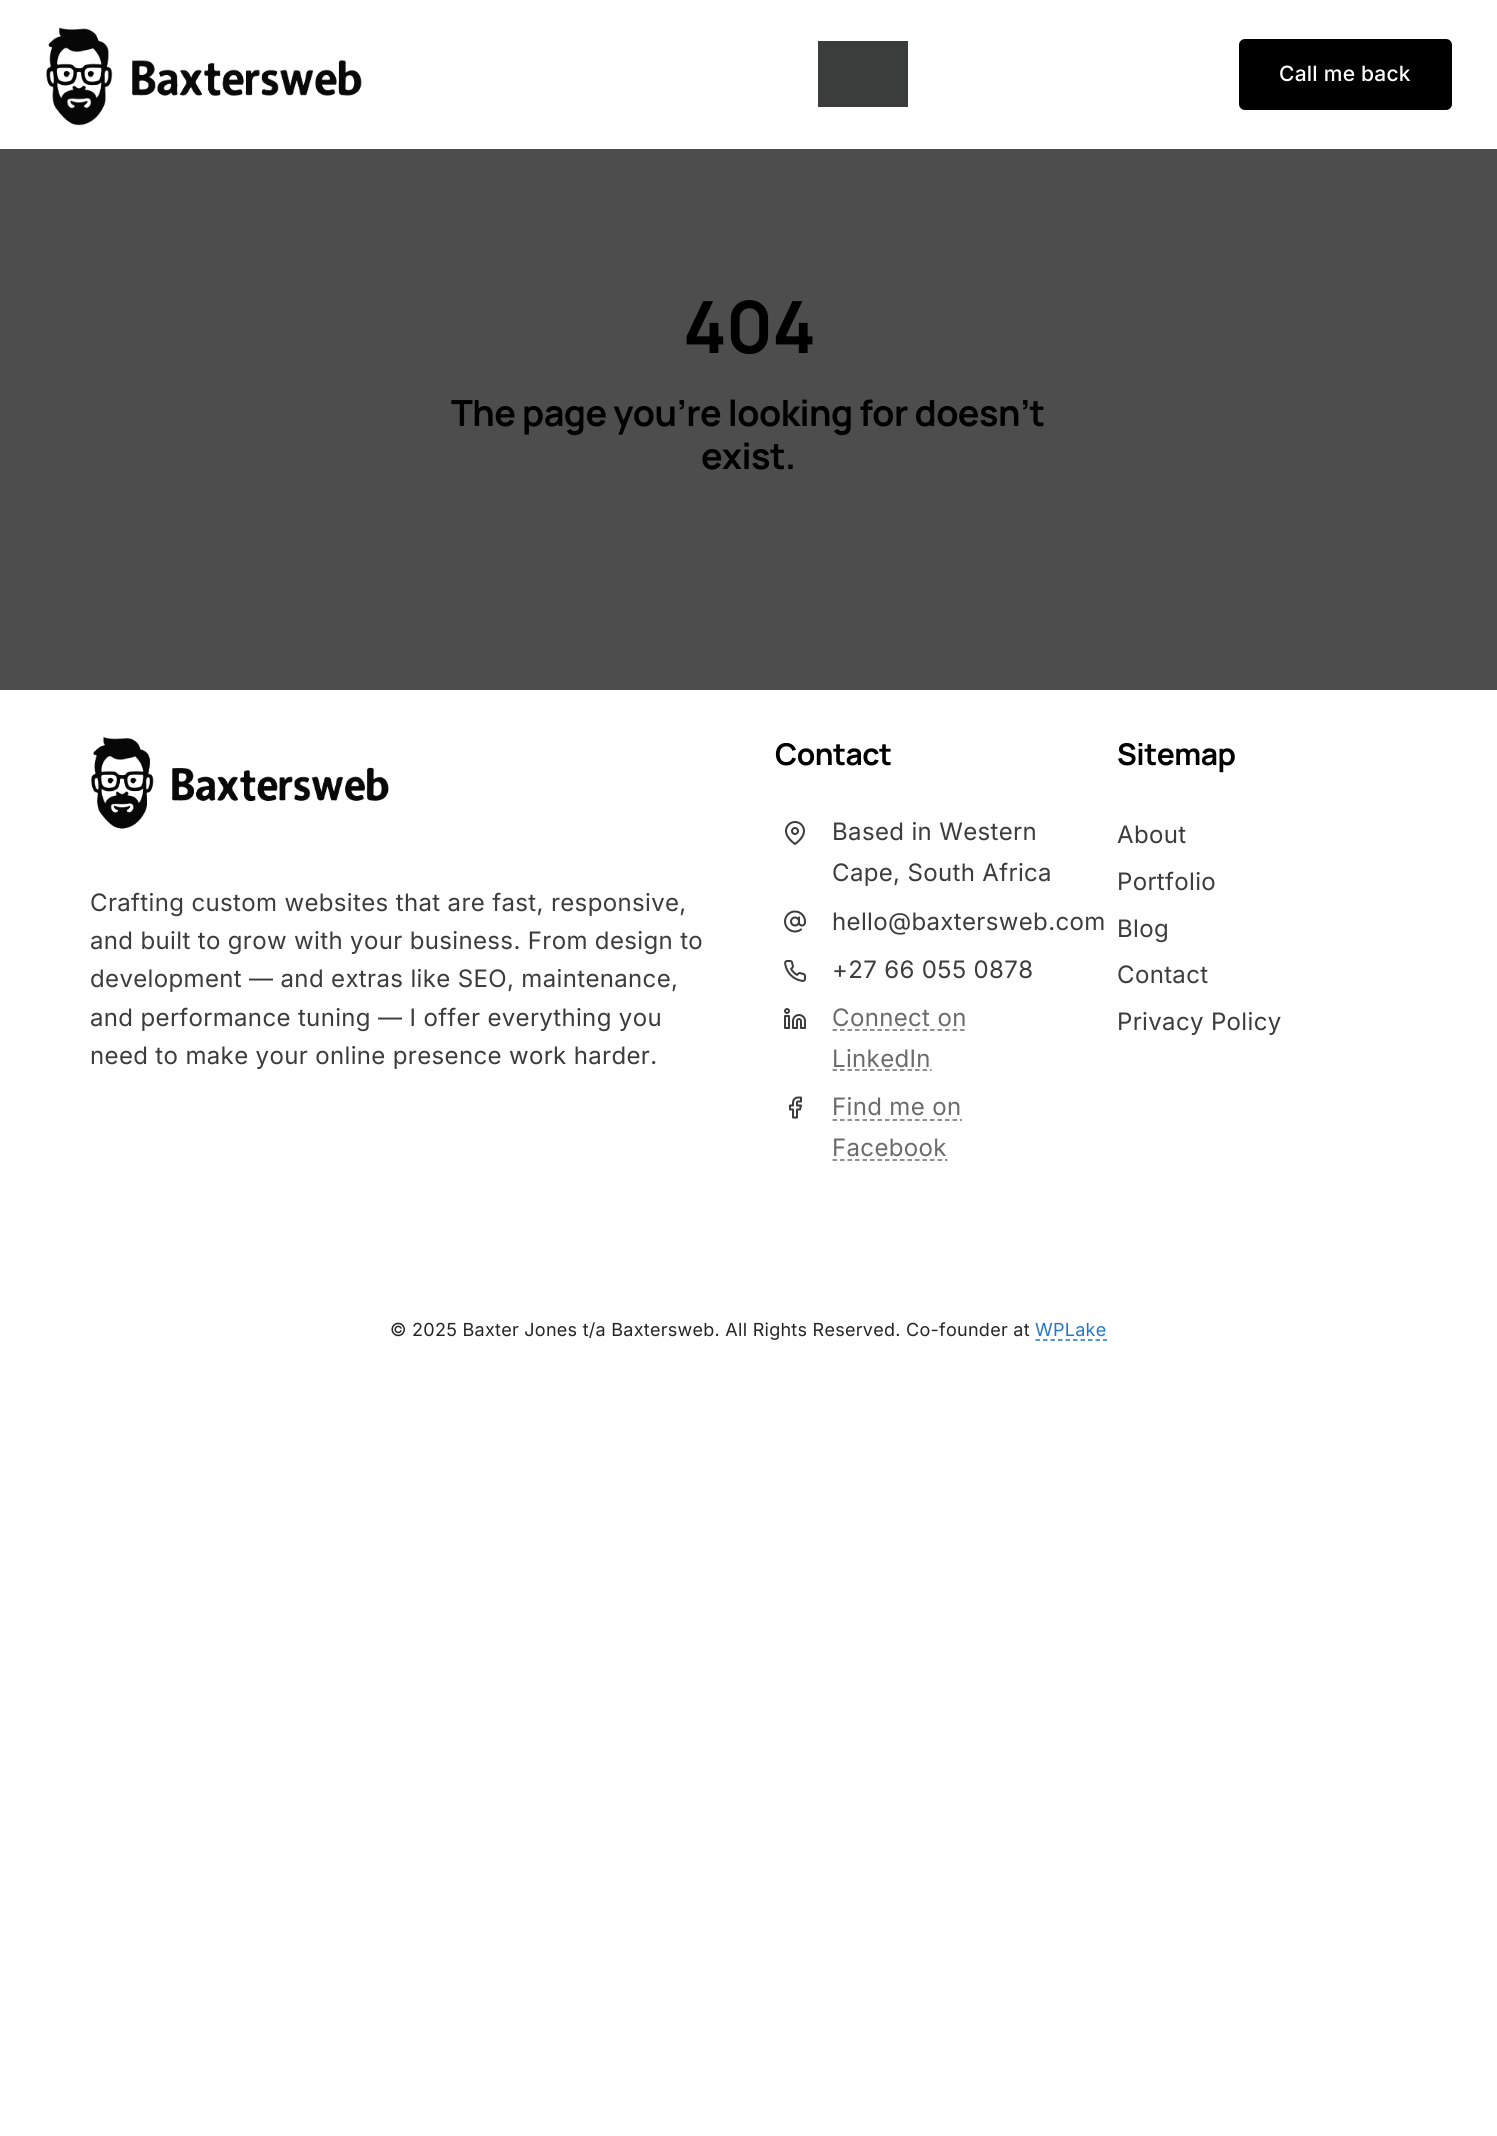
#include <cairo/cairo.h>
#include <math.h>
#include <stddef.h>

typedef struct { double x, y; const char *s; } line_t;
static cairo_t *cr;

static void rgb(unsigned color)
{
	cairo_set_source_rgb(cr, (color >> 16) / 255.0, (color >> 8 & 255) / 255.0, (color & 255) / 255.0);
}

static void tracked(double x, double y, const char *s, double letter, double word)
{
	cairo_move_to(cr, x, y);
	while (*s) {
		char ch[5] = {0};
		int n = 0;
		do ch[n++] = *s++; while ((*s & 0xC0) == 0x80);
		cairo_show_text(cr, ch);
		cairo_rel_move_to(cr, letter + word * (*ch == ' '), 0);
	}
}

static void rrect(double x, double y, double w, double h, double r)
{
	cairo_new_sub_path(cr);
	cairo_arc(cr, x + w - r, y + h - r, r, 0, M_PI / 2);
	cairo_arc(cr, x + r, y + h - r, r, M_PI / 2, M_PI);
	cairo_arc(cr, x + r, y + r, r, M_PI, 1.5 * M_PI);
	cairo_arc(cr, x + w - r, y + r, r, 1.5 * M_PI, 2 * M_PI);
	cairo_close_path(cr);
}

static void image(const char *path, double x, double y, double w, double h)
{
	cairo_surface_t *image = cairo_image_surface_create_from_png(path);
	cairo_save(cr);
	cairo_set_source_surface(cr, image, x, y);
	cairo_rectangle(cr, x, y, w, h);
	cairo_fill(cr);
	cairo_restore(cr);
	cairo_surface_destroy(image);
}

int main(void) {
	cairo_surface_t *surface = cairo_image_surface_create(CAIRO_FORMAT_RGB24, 1497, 2136);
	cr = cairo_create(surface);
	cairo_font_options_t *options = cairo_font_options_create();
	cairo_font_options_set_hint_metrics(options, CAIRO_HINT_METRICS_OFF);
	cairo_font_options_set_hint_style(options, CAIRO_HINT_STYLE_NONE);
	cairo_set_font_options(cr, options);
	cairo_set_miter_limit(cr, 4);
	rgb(0xffffff);
	cairo_paint(cr);
	image("img/1.png", 46, 27, 316, 99);
	rgb(0x3b3c3c);
	cairo_rectangle(cr, 818, 41, 90, 66);
	cairo_fill(cr);
	rgb(0x000000);
	rrect(1240, 40, 211, 69, 5);
	cairo_fill_preserve(cr);
	cairo_stroke(cr);
	rgb(0x4d4d4d);
	cairo_rectangle(cr, 0, 149, 1497, 541);
	cairo_fill(cr);
	image("img/2.png", 91, 737, 298, 92);
	image("img/3.png", 785, 821, 20, 24);
	image("img/4.png", 784, 910, 22, 23);
	image("img/5.png", 784, 960, 22, 22);
	image("img/6.png", 784, 1008, 22, 21);
	cairo_new_path(cr);
	cairo_move_to(cr, 832.5, 1030);
	cairo_line_to(cr, 967, 1030);
	rgb(0x6b6b6b);
	cairo_set_line_width(cr, 1.5);
	cairo_set_dash(cr, (double[]){4.5, 3}, 2, 0);
	cairo_stroke(cr);
	cairo_new_path(cr);
	cairo_move_to(cr, 832.5, 1070);
	cairo_line_to(cr, 931.5, 1070);
	cairo_stroke(cr);
	image("img/7.png", 789, 1096, 13, 23);
	cairo_new_path(cr);
	cairo_move_to(cr, 832.5, 1120);
	cairo_line_to(cr, 962, 1120);
	cairo_stroke(cr);
	cairo_new_path(cr);
	cairo_move_to(cr, 832.5, 1160);
	cairo_line_to(cr, 947.5, 1160);
	cairo_stroke(cr);
	cairo_new_path(cr);
	cairo_move_to(cr, 1035.5, 1340);
	cairo_line_to(cr, 1107, 1340);
	rgb(0x2378c6);
	cairo_stroke(cr);
	cairo_select_font_face(cr, "Inter Medium", CAIRO_FONT_SLANT_NORMAL, CAIRO_FONT_WEIGHT_NORMAL);
	cairo_set_font_size(cr, 21);
	rgb(0xffffff);
	tracked(1279, 81, "Call me back", 0.25, 0);
	cairo_select_font_face(cr, "Manrope", CAIRO_FONT_SLANT_NORMAL, CAIRO_FONT_WEIGHT_BOLD);
	cairo_set_font_size(cr, 72);
	rgb(0x000000);
	tracked(683, 353, "404", -1, 0);
	cairo_set_font_size(cr, 36);
	tracked(451, 426, "The page you’re looking for doesn’t", -0.55, 0);
	tracked(701, 469, "exist.", -0.55, 0);
	cairo_select_font_face(cr, "Inter", CAIRO_FONT_SLANT_NORMAL, CAIRO_FONT_WEIGHT_NORMAL);
	cairo_set_font_size(cr, 24);
	rgb(0x3b3c3c);
	{
		static const line_t items[] = {
			{90, 911, "Crafting custom websites that are fast, responsive,"},
			{90, 949, "and built to grow with your business. From design to"},
			{90, 987, "development — and extras like SEO, maintenance,"},
			{90, 1026, "and performance tuning — I offer everything you"},
			{90, 1064, "need to make your online presence work harder."},
		};
		for (size_t i = 0; i < sizeof items / sizeof *items; i++) {
			tracked(items[i].x, items[i].y, items[i].s, 0.35, 0);
		}
	}
	cairo_select_font_face(cr, "Manrope", CAIRO_FONT_SLANT_NORMAL, CAIRO_FONT_WEIGHT_BOLD);
	cairo_set_font_size(cr, 30);
	rgb(0x000000);
	tracked(775, 765, "Contact", -0.5, 0);
	cairo_select_font_face(cr, "Inter", CAIRO_FONT_SLANT_NORMAL, CAIRO_FONT_WEIGHT_NORMAL);
	cairo_set_font_size(cr, 24);
	rgb(0x3b3c3c);
	{
		static const line_t items[] = {
			{832, 840, "Based in Western"},
			{832, 881, "Cape, South Africa"},
			{832, 930, "hello@baxtersweb.com"},
			{832, 978, "+27 66 055 0878"},
		};
		for (size_t i = 0; i < sizeof items / sizeof *items; i++) {
			tracked(items[i].x, items[i].y, items[i].s, 0.35, 0);
		}
	}
	rgb(0x6b6b6b);
	{
		static const line_t items[] = {
			{832, 1026, "Connect on"},
			{832, 1067, "LinkedIn"},
			{832, 1115, "Find me on"},
			{832, 1156, "Facebook"},
		};
		for (size_t i = 0; i < sizeof items / sizeof *items; i++) {
			tracked(items[i].x, items[i].y, items[i].s, 0.35, 0);
		}
	}
	cairo_select_font_face(cr, "Manrope", CAIRO_FONT_SLANT_NORMAL, CAIRO_FONT_WEIGHT_BOLD);
	cairo_set_font_size(cr, 30);
	rgb(0x000000);
	tracked(1117, 765, "Sitemap", -0.5, 0);
	cairo_select_font_face(cr, "Inter", CAIRO_FONT_SLANT_NORMAL, CAIRO_FONT_WEIGHT_NORMAL);
	cairo_set_font_size(cr, 24);
	rgb(0x3b3c3c);
	{
		static const line_t items[] = {
			{1117, 843, "About"},
			{1117, 890, "Portfolio"},
			{1117, 937, "Blog"},
			{1117, 983, "Contact"},
			{1117, 1030, "Privacy Policy"},
		};
		for (size_t i = 0; i < sizeof items / sizeof *items; i++) {
			tracked(items[i].x, items[i].y, items[i].s, 0.35, 0);
		}
	}
	cairo_set_font_size(cr, 18);
	rgb(0x252525);
	tracked(390, 1336, "© 2025 Baxter Jones t/a Baxtersweb. All Rights Reserved. Co-founder at", 0.27, 0);
	rgb(0x2378c6);
	tracked(1035, 1336, "WPLake", 0.27, 0);
	cairo_surface_write_to_png(surface, "page.png");
	cairo_font_options_destroy(options);
	cairo_destroy(cr);
	cairo_surface_destroy(surface);
	return 0;
}
